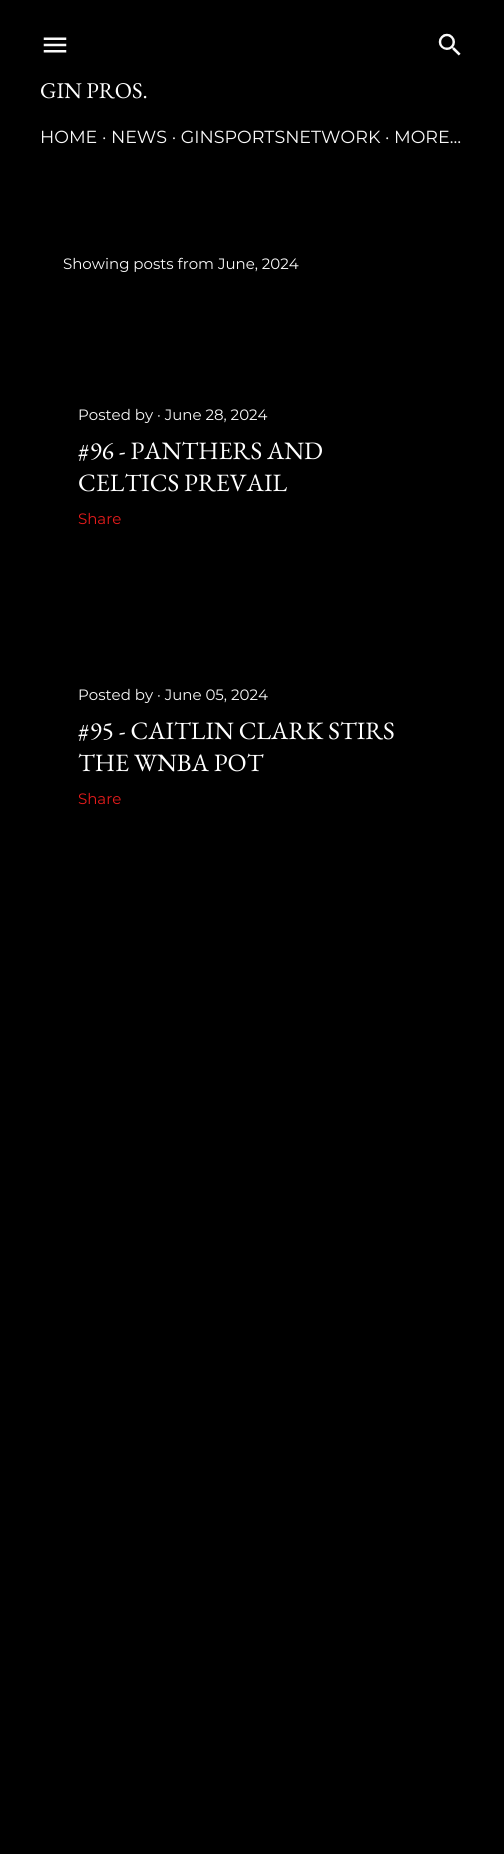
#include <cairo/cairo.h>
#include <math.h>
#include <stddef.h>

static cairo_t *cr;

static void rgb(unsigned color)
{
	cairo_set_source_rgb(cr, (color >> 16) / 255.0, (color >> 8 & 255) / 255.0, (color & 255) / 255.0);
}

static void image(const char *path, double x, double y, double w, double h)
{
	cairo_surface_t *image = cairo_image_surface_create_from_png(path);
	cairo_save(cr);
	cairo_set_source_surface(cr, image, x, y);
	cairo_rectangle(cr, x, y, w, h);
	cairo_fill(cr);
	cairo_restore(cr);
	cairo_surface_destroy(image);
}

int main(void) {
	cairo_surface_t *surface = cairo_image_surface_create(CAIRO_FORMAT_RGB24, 504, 1854);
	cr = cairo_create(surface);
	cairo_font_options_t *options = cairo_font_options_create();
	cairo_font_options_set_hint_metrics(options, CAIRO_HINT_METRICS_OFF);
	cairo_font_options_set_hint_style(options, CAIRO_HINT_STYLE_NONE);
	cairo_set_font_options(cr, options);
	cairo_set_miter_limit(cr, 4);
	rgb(0x000000);
	cairo_paint(cr);
	image("img/1.png", 43, 37, 24, 16);
	image("img/2.png", 438, 33, 23, 23);
	cairo_select_font_face(cr, "EB Garamond", CAIRO_FONT_SLANT_NORMAL, CAIRO_FONT_WEIGHT_NORMAL);
	cairo_set_font_size(cr, 22.5);
	rgb(0xffffff);
	cairo_move_to(cr, 40, 98);
	cairo_show_text(cr, "GIN PROS.");
	cairo_select_font_face(cr, "Montserrat", CAIRO_FONT_SLANT_NORMAL, CAIRO_FONT_WEIGHT_NORMAL);
	cairo_set_font_size(cr, 17.5);
	rgb(0xf9f9f9);
	cairo_move_to(cr, 40, 143);
	cairo_show_text(cr, "HOME · NEWS · GINSPORTSNETWORK · MORE…");
	cairo_set_font_size(cr, 15);
	cairo_move_to(cr, 63, 269);
	cairo_show_text(cr, "Showing posts from June, 2024");
	cairo_move_to(cr, 78, 420);
	cairo_show_text(cr, "Posted by · June 28, 2024");
	cairo_select_font_face(cr, "EB Garamond", CAIRO_FONT_SLANT_NORMAL, CAIRO_FONT_WEIGHT_NORMAL);
	cairo_set_font_size(cr, 25);
	rgb(0xffffff);
	cairo_move_to(cr, 78, 459);
	cairo_show_text(cr, "#96 - PANTHERS AND");
	cairo_move_to(cr, 78, 491);
	cairo_show_text(cr, "CELTICS PREVAIL");
	cairo_select_font_face(cr, "Montserrat", CAIRO_FONT_SLANT_NORMAL, CAIRO_FONT_WEIGHT_NORMAL);
	cairo_set_font_size(cr, 15);
	rgb(0xe61b1b);
	cairo_move_to(cr, 78, 524);
	cairo_show_text(cr, "Share");
	rgb(0xf9f9f9);
	cairo_move_to(cr, 78, 700);
	cairo_show_text(cr, "Posted by · June 05, 2024");
	cairo_select_font_face(cr, "EB Garamond", CAIRO_FONT_SLANT_NORMAL, CAIRO_FONT_WEIGHT_NORMAL);
	cairo_set_font_size(cr, 25);
	rgb(0xffffff);
	cairo_move_to(cr, 78, 739);
	cairo_show_text(cr, "#95 - CAITLIN CLARK STIRS");
	cairo_move_to(cr, 78, 771);
	cairo_show_text(cr, "THE WNBA POT");
	cairo_select_font_face(cr, "Montserrat", CAIRO_FONT_SLANT_NORMAL, CAIRO_FONT_WEIGHT_NORMAL);
	cairo_set_font_size(cr, 15);
	rgb(0xe61b1b);
	cairo_move_to(cr, 78, 804);
	cairo_show_text(cr, "Share");
	cairo_surface_write_to_png(surface, "page.png");
	cairo_font_options_destroy(options);
	cairo_destroy(cr);
	cairo_surface_destroy(surface);
	return 0;
}
